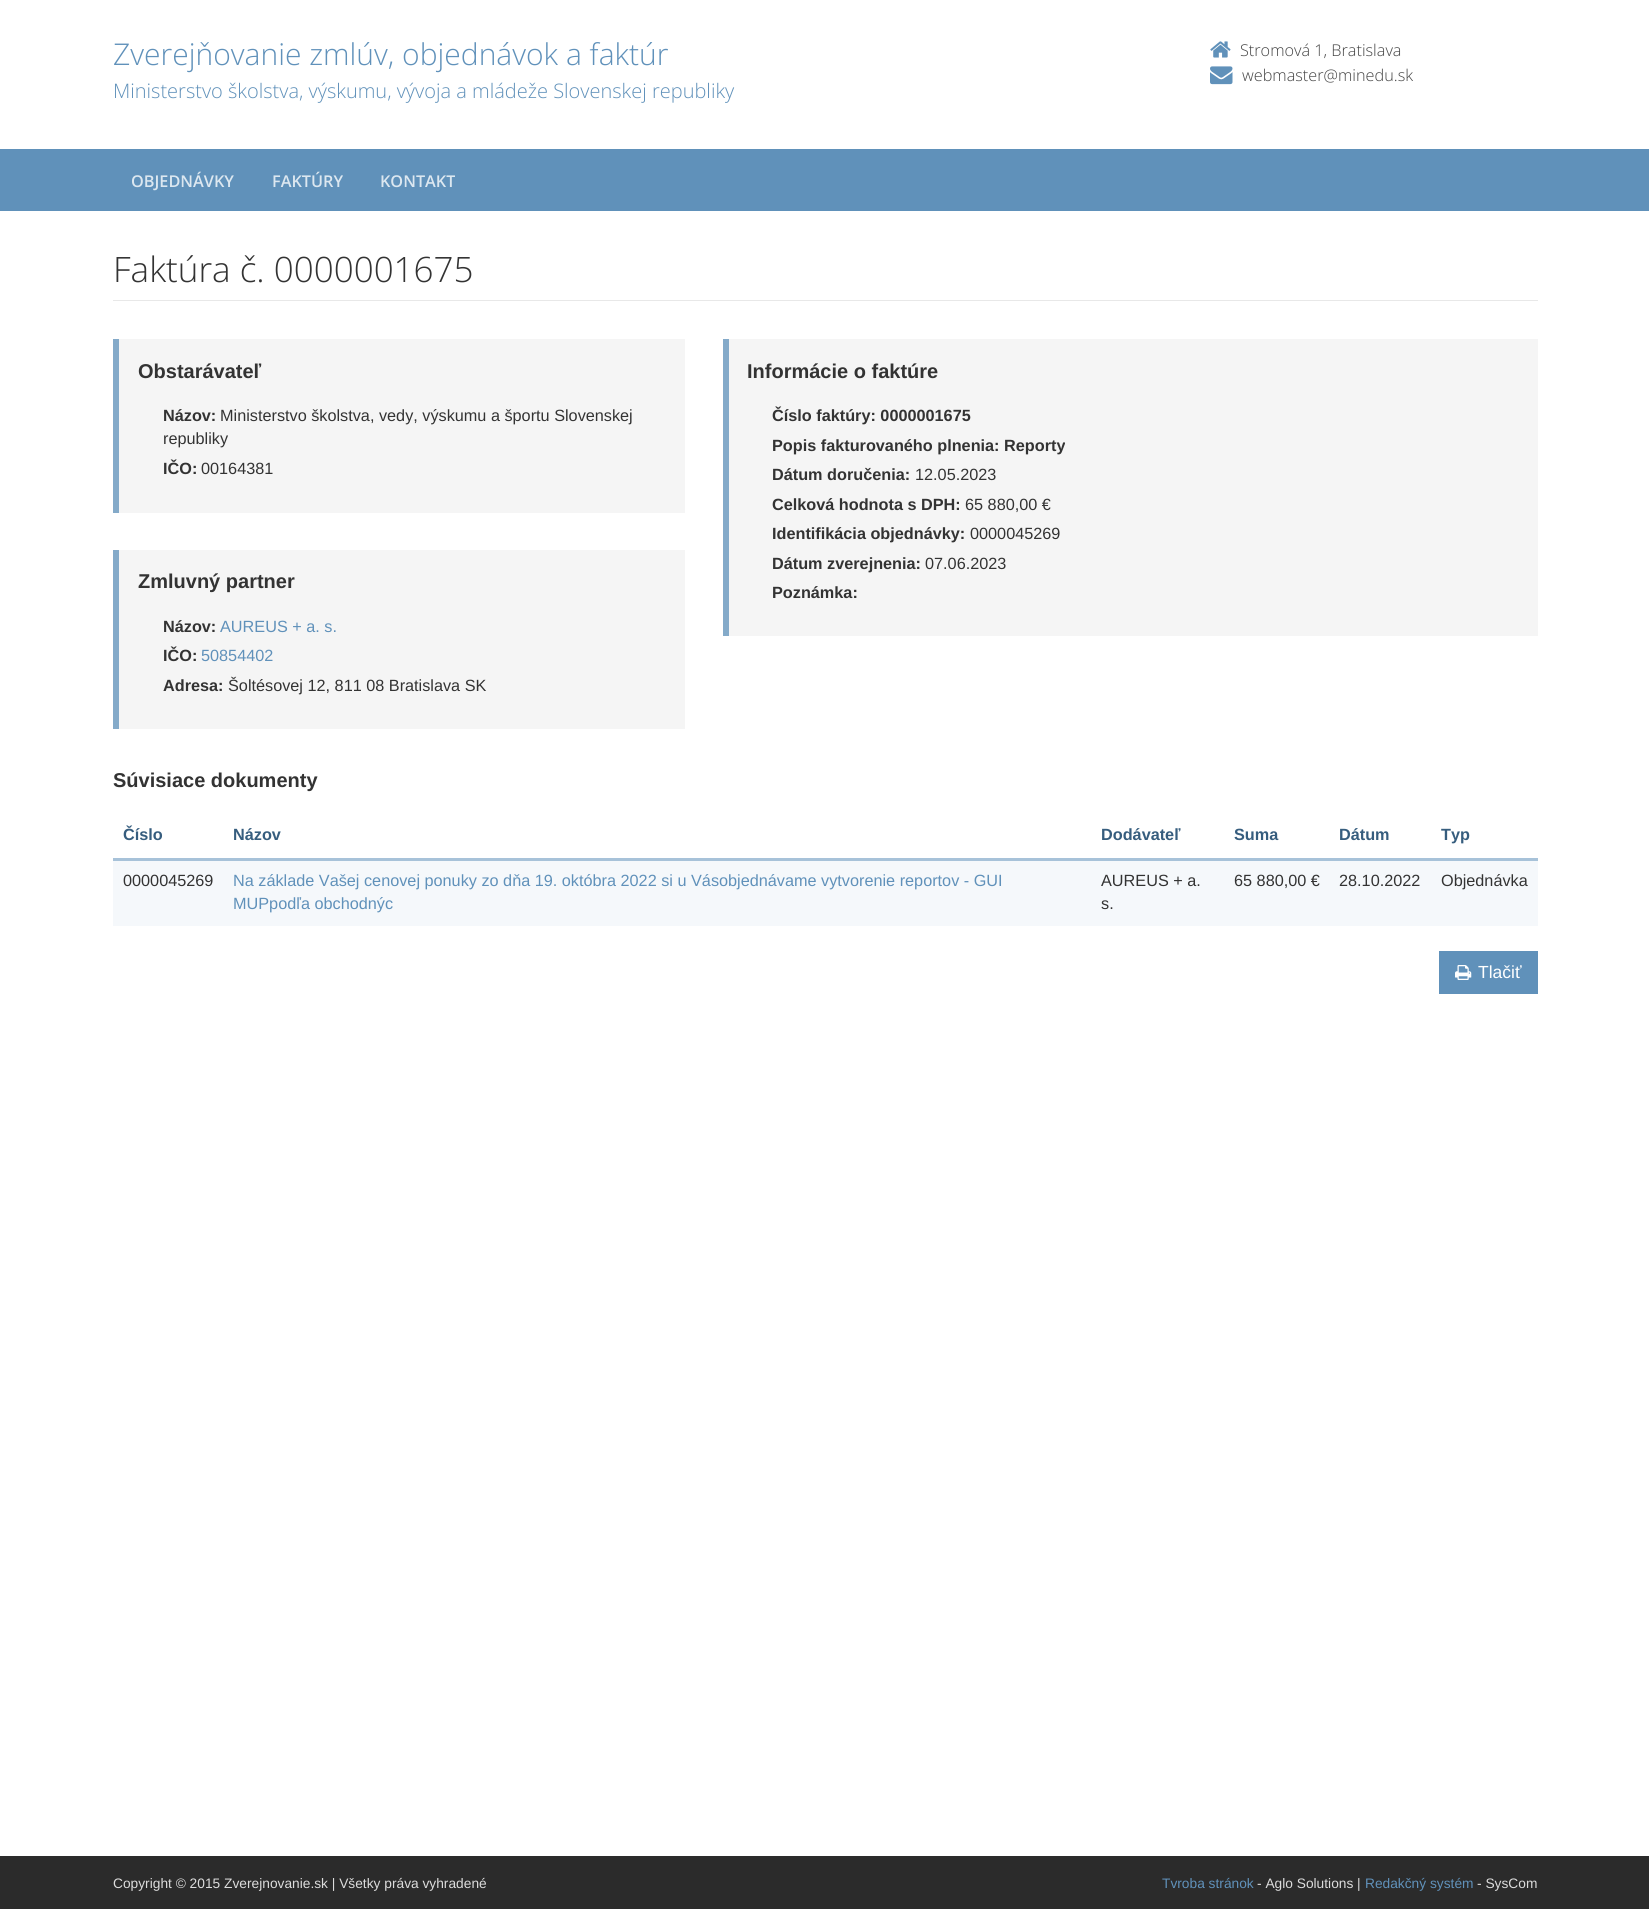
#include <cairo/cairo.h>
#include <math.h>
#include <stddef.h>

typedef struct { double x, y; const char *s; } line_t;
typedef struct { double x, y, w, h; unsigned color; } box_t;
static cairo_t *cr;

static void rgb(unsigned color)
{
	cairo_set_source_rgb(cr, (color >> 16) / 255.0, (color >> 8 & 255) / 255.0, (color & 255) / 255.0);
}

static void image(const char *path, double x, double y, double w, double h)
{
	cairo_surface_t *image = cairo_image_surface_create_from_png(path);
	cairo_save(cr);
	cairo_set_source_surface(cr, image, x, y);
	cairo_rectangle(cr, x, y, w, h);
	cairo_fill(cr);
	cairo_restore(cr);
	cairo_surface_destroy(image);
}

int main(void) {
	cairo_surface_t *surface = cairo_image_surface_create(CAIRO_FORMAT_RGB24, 1649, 1909);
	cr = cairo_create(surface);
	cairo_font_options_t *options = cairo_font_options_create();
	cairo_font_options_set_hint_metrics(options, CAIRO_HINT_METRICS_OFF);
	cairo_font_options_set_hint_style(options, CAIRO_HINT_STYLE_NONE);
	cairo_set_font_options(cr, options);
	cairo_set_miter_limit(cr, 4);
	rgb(0xffffff);
	cairo_paint(cr);
	image("img/1.png", 1210, 41, 21, 17);
	image("img/2.png", 1210, 66, 23, 19);
	{
		static const box_t items[] = {
			{0, 149, 1649, 62, 0x6091ba},
			{113, 300, 1425, 1, 0xe8e8e8},
			{119, 339, 566, 174, 0xf5f5f5},
			{113, 339, 6, 174, 0x84aac9},
			{119, 550, 566, 179, 0xf5f5f5},
			{113, 550, 6, 179, 0x84aac9},
			{729, 339, 809, 297, 0xf5f5f5},
			{723, 339, 6, 297, 0x84aac9},
			{113, 858, 1425, 3, 0xa7c2d9},
			{113, 861, 1425, 65, 0xf5f8fb},
			{1439, 951, 99, 43, 0x6091ba},
		};
		for (size_t i = 0; i < sizeof items / sizeof *items; i++) {
			rgb(items[i].color);
			cairo_rectangle(cr, items[i].x, items[i].y, items[i].w, items[i].h);
			cairo_fill(cr);
		}
	}
	image("img/3.png", 1455, 965, 17, 15);
	rgb(0x2b2b2b);
	cairo_rectangle(cr, 0, 1856, 1649, 53);
	cairo_fill(cr);
	cairo_select_font_face(cr, "Open Sans Light", CAIRO_FONT_SLANT_NORMAL, CAIRO_FONT_WEIGHT_NORMAL);
	cairo_set_font_size(cr, 30);
	rgb(0x6091ba);
	cairo_move_to(cr, 113, 65);
	cairo_show_text(cr, "Zverejňovanie zmlúv, objednávok a faktúr");
	cairo_set_font_size(cr, 20);
	cairo_move_to(cr, 113, 98);
	cairo_show_text(cr, "Ministerstvo školstva, výskumu, vývoja a mládeže Slovenskej republiky");
	cairo_set_font_size(cr, 16.25);
	rgb(0x444444);
	cairo_move_to(cr, 1240, 56);
	cairo_show_text(cr, "Stromová 1, Bratislava");
	cairo_move_to(cr, 1242, 81);
	cairo_show_text(cr, "webmaster@minedu.sk");
	cairo_select_font_face(cr, "Open Sans SemiBold", CAIRO_FONT_SLANT_NORMAL, CAIRO_FONT_WEIGHT_NORMAL);
	rgb(0xdce7f0);
	{
		static const line_t items[] = {
			{131, 187, "OBJEDNÁVKY"},
			{272, 187, "FAKTÚRY"},
			{380, 187, "KONTAKT"},
		};
		for (size_t i = 0; i < sizeof items / sizeof *items; i++) {
			cairo_move_to(cr, items[i].x, items[i].y);
			cairo_show_text(cr, items[i].s);
		}
	}
	cairo_select_font_face(cr, "Open Sans Light", CAIRO_FONT_SLANT_NORMAL, CAIRO_FONT_WEIGHT_NORMAL);
	cairo_set_font_size(cr, 35);
	rgb(0x333333);
	cairo_move_to(cr, 113, 282);
	cairo_show_text(cr, "Faktúra č. 0000001675");
	cairo_select_font_face(cr, "Liberation Sans", CAIRO_FONT_SLANT_NORMAL, CAIRO_FONT_WEIGHT_BOLD);
	cairo_set_font_size(cr, 20);
	cairo_move_to(cr, 138, 378);
	cairo_show_text(cr, "Obstarávateľ");
	cairo_set_font_size(cr, 16.25);
	cairo_move_to(cr, 163, 421);
	cairo_show_text(cr, "Názov:");
	cairo_select_font_face(cr, "Liberation Sans", CAIRO_FONT_SLANT_NORMAL, CAIRO_FONT_WEIGHT_NORMAL);
	cairo_move_to(cr, 220, 421);
	cairo_show_text(cr, "Ministerstvo školstva, vedy, výskumu a športu Slovenskej");
	cairo_move_to(cr, 163, 444);
	cairo_show_text(cr, "republiky");
	cairo_select_font_face(cr, "Liberation Sans", CAIRO_FONT_SLANT_NORMAL, CAIRO_FONT_WEIGHT_BOLD);
	cairo_move_to(cr, 163, 474);
	cairo_show_text(cr, "IČO:");
	cairo_select_font_face(cr, "Liberation Sans", CAIRO_FONT_SLANT_NORMAL, CAIRO_FONT_WEIGHT_NORMAL);
	cairo_move_to(cr, 201, 474);
	cairo_show_text(cr, "00164381");
	cairo_select_font_face(cr, "Liberation Sans", CAIRO_FONT_SLANT_NORMAL, CAIRO_FONT_WEIGHT_BOLD);
	cairo_set_font_size(cr, 20);
	cairo_move_to(cr, 138, 588);
	cairo_show_text(cr, "Zmluvný partner");
	cairo_set_font_size(cr, 16.25);
	cairo_move_to(cr, 163, 632);
	cairo_show_text(cr, "Názov:");
	cairo_select_font_face(cr, "Liberation Sans", CAIRO_FONT_SLANT_NORMAL, CAIRO_FONT_WEIGHT_NORMAL);
	rgb(0x6091ba);
	cairo_move_to(cr, 220, 632);
	cairo_show_text(cr, "AUREUS + a. s.");
	cairo_select_font_face(cr, "Liberation Sans", CAIRO_FONT_SLANT_NORMAL, CAIRO_FONT_WEIGHT_BOLD);
	rgb(0x333333);
	cairo_move_to(cr, 163, 661);
	cairo_show_text(cr, "IČO:");
	cairo_select_font_face(cr, "Liberation Sans", CAIRO_FONT_SLANT_NORMAL, CAIRO_FONT_WEIGHT_NORMAL);
	rgb(0x6091ba);
	cairo_move_to(cr, 201, 661);
	cairo_show_text(cr, "50854402");
	cairo_select_font_face(cr, "Liberation Sans", CAIRO_FONT_SLANT_NORMAL, CAIRO_FONT_WEIGHT_BOLD);
	rgb(0x333333);
	cairo_move_to(cr, 163, 691);
	cairo_show_text(cr, "Adresa:");
	cairo_select_font_face(cr, "Liberation Sans", CAIRO_FONT_SLANT_NORMAL, CAIRO_FONT_WEIGHT_NORMAL);
	cairo_move_to(cr, 228, 691);
	cairo_show_text(cr, "Šoltésovej 12, 811 08 Bratislava SK");
	cairo_select_font_face(cr, "Liberation Sans", CAIRO_FONT_SLANT_NORMAL, CAIRO_FONT_WEIGHT_BOLD);
	cairo_set_font_size(cr, 20);
	cairo_move_to(cr, 747, 378);
	cairo_show_text(cr, "Informácie o faktúre");
	cairo_set_font_size(cr, 16.25);
	{
		static const line_t items[] = {
			{772, 421, "Číslo faktúry: 0000001675"},
			{772, 451, "Popis fakturovaného plnenia: Reporty"},
			{772, 480, "Dátum doručenia:"},
		};
		for (size_t i = 0; i < sizeof items / sizeof *items; i++) {
			cairo_move_to(cr, items[i].x, items[i].y);
			cairo_show_text(cr, items[i].s);
		}
	}
	cairo_select_font_face(cr, "Liberation Sans", CAIRO_FONT_SLANT_NORMAL, CAIRO_FONT_WEIGHT_NORMAL);
	cairo_move_to(cr, 915, 480);
	cairo_show_text(cr, "12.05.2023");
	cairo_select_font_face(cr, "Liberation Sans", CAIRO_FONT_SLANT_NORMAL, CAIRO_FONT_WEIGHT_BOLD);
	cairo_move_to(cr, 772, 510);
	cairo_show_text(cr, "Celková hodnota s DPH:");
	cairo_select_font_face(cr, "Liberation Sans", CAIRO_FONT_SLANT_NORMAL, CAIRO_FONT_WEIGHT_NORMAL);
	cairo_move_to(cr, 965, 510);
	cairo_show_text(cr, "65 880,00 €");
	cairo_select_font_face(cr, "Liberation Sans", CAIRO_FONT_SLANT_NORMAL, CAIRO_FONT_WEIGHT_BOLD);
	cairo_move_to(cr, 772, 539);
	cairo_show_text(cr, "Identifikácia objednávky:");
	cairo_select_font_face(cr, "Liberation Sans", CAIRO_FONT_SLANT_NORMAL, CAIRO_FONT_WEIGHT_NORMAL);
	cairo_move_to(cr, 970, 539);
	cairo_show_text(cr, "0000045269");
	cairo_select_font_face(cr, "Liberation Sans", CAIRO_FONT_SLANT_NORMAL, CAIRO_FONT_WEIGHT_BOLD);
	cairo_move_to(cr, 772, 569);
	cairo_show_text(cr, "Dátum zverejnenia:");
	cairo_select_font_face(cr, "Liberation Sans", CAIRO_FONT_SLANT_NORMAL, CAIRO_FONT_WEIGHT_NORMAL);
	cairo_move_to(cr, 925, 569);
	cairo_show_text(cr, "07.06.2023");
	cairo_select_font_face(cr, "Liberation Sans", CAIRO_FONT_SLANT_NORMAL, CAIRO_FONT_WEIGHT_BOLD);
	cairo_move_to(cr, 772, 598);
	cairo_show_text(cr, "Poznámka:");
	cairo_set_font_size(cr, 20);
	cairo_move_to(cr, 113, 787);
	cairo_show_text(cr, "Súvisiace dokumenty");
	cairo_set_font_size(cr, 16.25);
	rgb(0x365d7e);
	{
		static const line_t items[] = {
			{123, 840, "Číslo"},
			{233, 840, "Názov"},
			{1101, 840, "Dodávateľ"},
			{1234, 840, "Suma"},
			{1339, 840, "Dátum"},
			{1441, 840, "Typ"},
		};
		for (size_t i = 0; i < sizeof items / sizeof *items; i++) {
			cairo_move_to(cr, items[i].x, items[i].y);
			cairo_show_text(cr, items[i].s);
		}
	}
	cairo_select_font_face(cr, "Liberation Sans", CAIRO_FONT_SLANT_NORMAL, CAIRO_FONT_WEIGHT_NORMAL);
	rgb(0x333333);
	cairo_move_to(cr, 123, 886);
	cairo_show_text(cr, "0000045269");
	rgb(0x6091ba);
	cairo_move_to(cr, 233, 886);
	cairo_show_text(cr, "Na základe Vašej cenovej ponuky zo dňa 19. októbra 2022 si u Vásobjednávame vytvorenie reportov - GUI");
	cairo_move_to(cr, 233, 909);
	cairo_show_text(cr, "MUPpodľa obchodnýc");
	rgb(0x333333);
	{
		static const line_t items[] = {
			{1101, 886, "AUREUS + a."},
			{1101, 909, "s."},
			{1234, 886, "65 880,00 €"},
			{1339, 886, "28.10.2022"},
			{1441, 886, "Objednávka"},
		};
		for (size_t i = 0; i < sizeof items / sizeof *items; i++) {
			cairo_move_to(cr, items[i].x, items[i].y);
			cairo_show_text(cr, items[i].s);
		}
	}
	cairo_set_font_size(cr, 17.5);
	rgb(0xffffff);
	cairo_move_to(cr, 1478, 978);
	cairo_show_text(cr, "Tlačiť");
	cairo_set_font_size(cr, 13.75);
	rgb(0xdcdcdc);
	cairo_move_to(cr, 113, 1888);
	cairo_show_text(cr, "Copyright © 2015 Zverejnovanie.sk | Všetky práva vyhradené");
	rgb(0x6091ba);
	cairo_move_to(cr, 1162, 1888);
	cairo_show_text(cr, "Tvroba stránok");
	rgb(0xdcdcdc);
	cairo_move_to(cr, 1257, 1888);
	cairo_show_text(cr, "- Aglo Solutions |");
	rgb(0x6091ba);
	cairo_move_to(cr, 1365, 1888);
	cairo_show_text(cr, "Redakčný systém");
	rgb(0xdcdcdc);
	cairo_move_to(cr, 1477, 1888);
	cairo_show_text(cr, "- SysCom");
	cairo_surface_write_to_png(surface, "page.png");
	cairo_font_options_destroy(options);
	cairo_destroy(cr);
	cairo_surface_destroy(surface);
	return 0;
}
